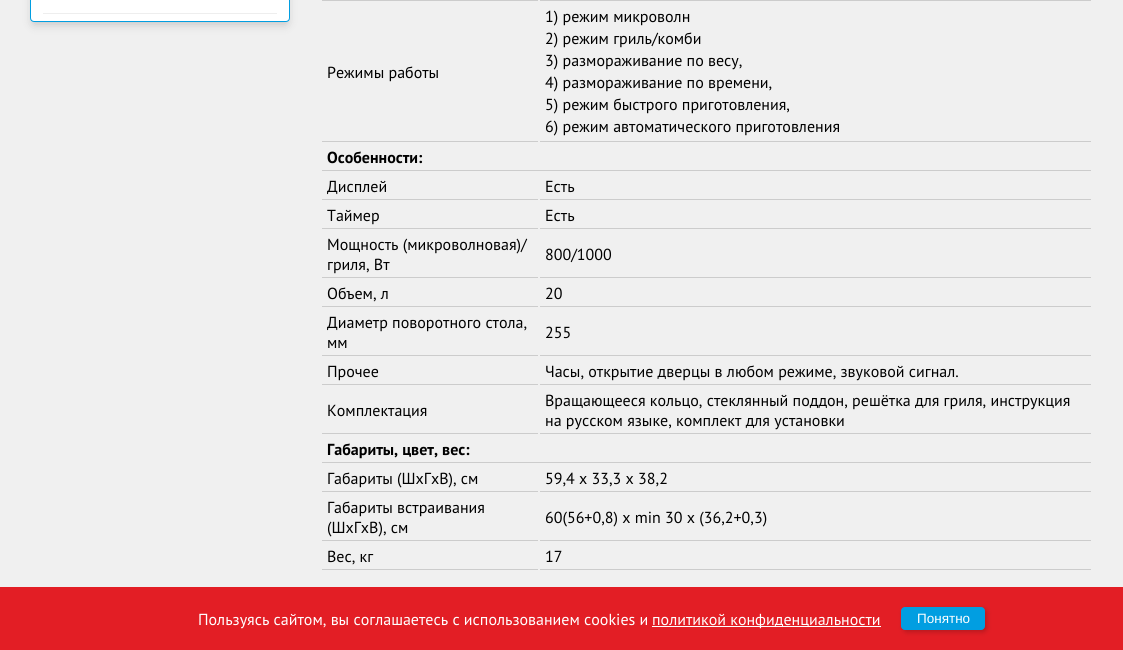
#include <cairo/cairo.h>
#include <math.h>
#include <stddef.h>

typedef struct { double x, y; const char *s; } line_t;
typedef struct { double x, y, w, h; unsigned color; } box_t;
static cairo_t *cr;

static void rgb(unsigned color)
{
	cairo_set_source_rgb(cr, (color >> 16) / 255.0, (color >> 8 & 255) / 255.0, (color & 255) / 255.0);
}

static void rrect(double x, double y, double w, double h, double r)
{
	cairo_new_sub_path(cr);
	cairo_arc(cr, x + w - r, y + h - r, r, 0, M_PI / 2);
	cairo_arc(cr, x + r, y + h - r, r, M_PI / 2, M_PI);
	cairo_arc(cr, x + r, y + r, r, M_PI, 1.5 * M_PI);
	cairo_arc(cr, x + w - r, y + r, r, 1.5 * M_PI, 2 * M_PI);
	cairo_close_path(cr);
}

static void soft_shadow(double x, double y, double w, double h, double r, double blur, double alpha)
{
	cairo_push_group_with_content(cr, CAIRO_CONTENT_ALPHA);
	cairo_set_operator(cr, CAIRO_OPERATOR_SOURCE);
	for (int i = 15; i >= -15 && fmin(w, h) + blur * i / 3 > 0; i -= 2) {
		double e = blur * i / 6;
		cairo_set_source_rgba(cr, 0, 0, 0, alpha * erfc((i - 1) / 8.5) / 2);
		rrect(x - e, y - e, w + 2 * e, h + 2 * e, fmax(0, fmin(r + e + blur * .6, fmin(w, h) / 2 + e)));
		cairo_fill(cr);
	}
	cairo_pattern_t *soft = cairo_pop_group(cr);
	cairo_mask(cr, soft);
	cairo_pattern_destroy(soft);
}

int main(void) {
	cairo_surface_t *surface = cairo_image_surface_create(CAIRO_FORMAT_RGB24, 1123, 650);
	cr = cairo_create(surface);
	cairo_font_options_t *options = cairo_font_options_create();
	cairo_font_options_set_hint_metrics(options, CAIRO_HINT_METRICS_OFF);
	cairo_font_options_set_hint_style(options, CAIRO_HINT_STYLE_NONE);
	cairo_set_font_options(cr, options);
	cairo_set_miter_limit(cr, 4);
	rgb(0xf0f0f0);
	cairo_paint(cr);
	rgb(0x000000);
	soft_shadow(33, -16, 254, 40, 1, 5, 0.2);
	rgb(0xffffff);
	rrect(30.5, -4.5, 259, 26, 3.5);
	cairo_fill_preserve(cr);
	rgb(0x019ee1);
	cairo_set_line_width(cr, 1);
	cairo_stroke(cr);
	{
		static const box_t items[] = {
			{43, 13, 234, 1, 0xeeeeee},
			{322, 0, 216, 1, 0xcccccc},
			{540, 0, 551, 1, 0xcccccc},
			{322, 141, 216, 1, 0xcccccc},
			{540, 141, 551, 1, 0xcccccc},
			{322, 170, 769, 1, 0xcccccc},
			{322, 199, 216, 1, 0xcccccc},
			{540, 199, 551, 1, 0xcccccc},
			{322, 228, 216, 1, 0xcccccc},
			{540, 228, 551, 1, 0xcccccc},
			{322, 277, 216, 1, 0xcccccc},
			{540, 277, 551, 1, 0xcccccc},
			{322, 306, 216, 1, 0xcccccc},
			{540, 306, 551, 1, 0xcccccc},
			{322, 355, 216, 1, 0xcccccc},
			{540, 355, 551, 1, 0xcccccc},
			{322, 384, 216, 1, 0xcccccc},
			{540, 384, 551, 1, 0xcccccc},
			{322, 433, 216, 1, 0xcccccc},
			{540, 433, 551, 1, 0xcccccc},
			{322, 462, 769, 1, 0xcccccc},
			{322, 491, 216, 1, 0xcccccc},
			{540, 491, 551, 1, 0xcccccc},
			{322, 540, 216, 1, 0xcccccc},
			{540, 540, 551, 1, 0xcccccc},
			{322, 569, 216, 1, 0xcccccc},
			{540, 569, 551, 1, 0xcccccc},
			{0, 587, 1123, 63, 0xe31e25},
			{652, 626, 229, 1, 0xffffff},
		};
		for (size_t i = 0; i < sizeof items / sizeof *items; i++) {
			rgb(items[i].color);
			cairo_rectangle(cr, items[i].x, items[i].y, items[i].w, items[i].h);
			cairo_fill(cr);
		}
	}
	rgb(0x000000);
	soft_shadow(903, 609, 84, 23, 4, 2.5, 0.2);
	rgb(0x019ee1);
	rrect(901.5, 607.5, 83, 22, 3.5);
	cairo_fill_preserve(cr);
	cairo_stroke(cr);
	cairo_select_font_face(cr, "PT Sans", CAIRO_FONT_SLANT_NORMAL, CAIRO_FONT_WEIGHT_NORMAL);
	cairo_set_font_size(cr, 16);
	rgb(0x000000);
	{
		static const line_t items[] = {
			{327, 78, "Режимы работы"},
			{545, 22, "1) режим микроволн"},
			{545, 44, "2) режим гриль/комби"},
			{545, 66, "3) размораживание по весу,"},
			{545, 88, "4) размораживание по времени,"},
			{545, 110, "5) режим быстрого приготовления,"},
			{545, 132, "6) режим автоматического приготовления"},
		};
		for (size_t i = 0; i < sizeof items / sizeof *items; i++) {
			cairo_move_to(cr, items[i].x, items[i].y);
			cairo_show_text(cr, items[i].s);
		}
	}
	cairo_select_font_face(cr, "PT Sans", CAIRO_FONT_SLANT_NORMAL, CAIRO_FONT_WEIGHT_BOLD);
	cairo_move_to(cr, 327, 163);
	cairo_show_text(cr, "Особенности:");
	cairo_select_font_face(cr, "PT Sans", CAIRO_FONT_SLANT_NORMAL, CAIRO_FONT_WEIGHT_NORMAL);
	{
		static const line_t items[] = {
			{327, 192, "Дисплей"},
			{545, 192, "Есть"},
			{327, 221, "Таймер"},
			{545, 221, "Есть"},
			{327, 250, "Мощность (микроволновая)/"},
			{327, 270, "гриля, Вт"},
			{545, 260, "800/1000"},
			{327, 299, "Объем, л"},
			{545, 299, "20"},
			{327, 328, "Диаметр поворотного стола,"},
			{327, 348, "мм"},
			{545, 338, "255"},
			{327, 377, "Прочее"},
			{545, 377, "Часы, открытие дверцы в любом режиме, звуковой сигнал."},
			{327, 416, "Комплектация"},
			{545, 406, "Вращающееся кольцо, стеклянный поддон, решётка для гриля, инструкция"},
			{545, 426, "на русском языке, комплект для установки"},
		};
		for (size_t i = 0; i < sizeof items / sizeof *items; i++) {
			cairo_move_to(cr, items[i].x, items[i].y);
			cairo_show_text(cr, items[i].s);
		}
	}
	cairo_select_font_face(cr, "PT Sans", CAIRO_FONT_SLANT_NORMAL, CAIRO_FONT_WEIGHT_BOLD);
	cairo_move_to(cr, 327, 455);
	cairo_show_text(cr, "Габариты, цвет, вес:");
	cairo_select_font_face(cr, "PT Sans", CAIRO_FONT_SLANT_NORMAL, CAIRO_FONT_WEIGHT_NORMAL);
	{
		static const line_t items[] = {
			{327, 484, "Габариты (ШхГхВ), см"},
			{545, 484, "59,4 х 33,3 х 38,2"},
			{327, 513, "Габариты встраивания"},
			{327, 533, "(ШхГхВ), см"},
			{545, 523, "60(56+0,8) х min 30 х (36,2+0,3)"},
			{327, 562, "Вес, кг"},
			{545, 562, "17"},
		};
		for (size_t i = 0; i < sizeof items / sizeof *items; i++) {
			cairo_move_to(cr, items[i].x, items[i].y);
			cairo_show_text(cr, items[i].s);
		}
	}
	rgb(0xffffff);
	cairo_move_to(cr, 198, 625);
	cairo_show_text(cr, "Пользуясь сайтом, вы соглашаетесь с использованием cookies и");
	cairo_move_to(cr, 652, 625);
	cairo_show_text(cr, "политикой конфиденциальности");
	cairo_select_font_face(cr, "Liberation Sans", CAIRO_FONT_SLANT_NORMAL, CAIRO_FONT_WEIGHT_NORMAL);
	cairo_set_font_size(cr, 13.5);
	cairo_move_to(cr, 917, 623);
	cairo_show_text(cr, "Понятно");
	cairo_surface_write_to_png(surface, "page.png");
	cairo_font_options_destroy(options);
	cairo_destroy(cr);
	cairo_surface_destroy(surface);
	return 0;
}
